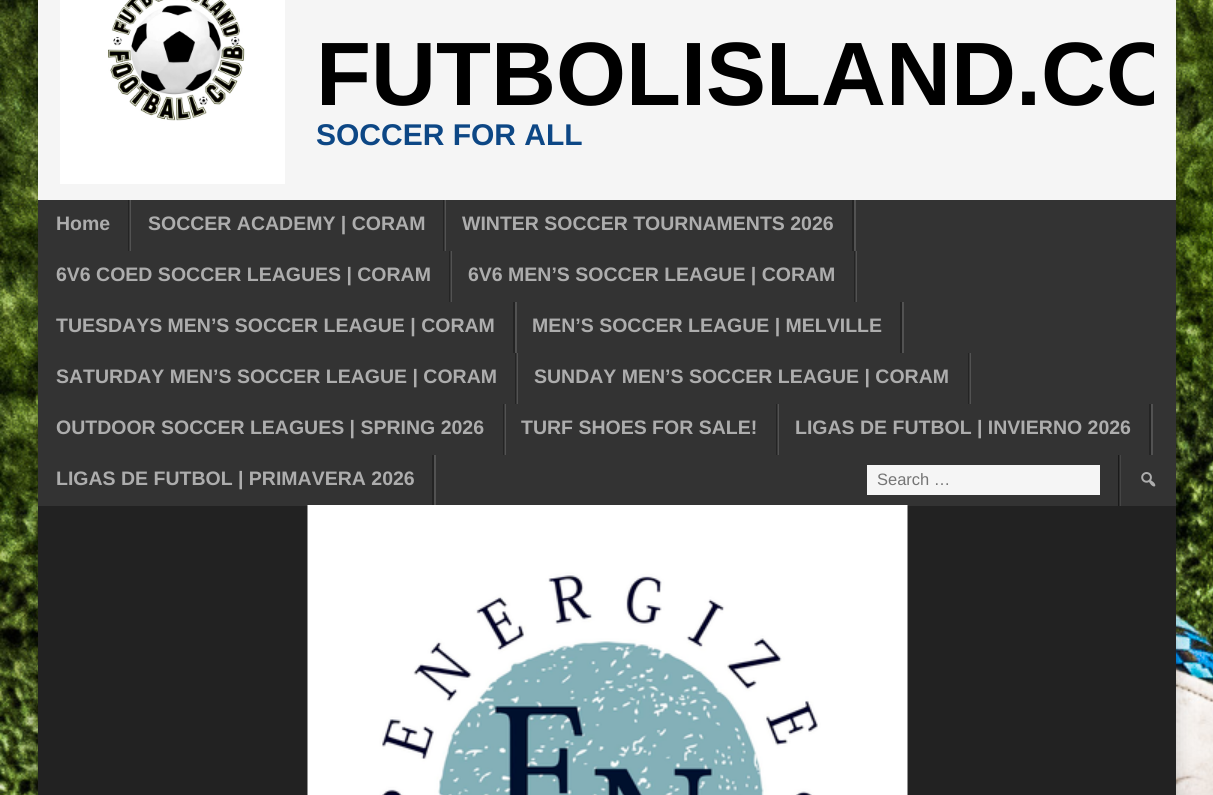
#include <cairo/cairo.h>
#include <math.h>
#include <stddef.h>

typedef struct { double x, y; const char *s; } line_t;
static cairo_t *cr;

static void rgb(unsigned color)
{
	cairo_set_source_rgb(cr, (color >> 16) / 255.0, (color >> 8 & 255) / 255.0, (color & 255) / 255.0);
}

static void rrect(double x, double y, double w, double h, double r)
{
	cairo_new_sub_path(cr);
	cairo_arc(cr, x + w - r, y + h - r, r, 0, M_PI / 2);
	cairo_arc(cr, x + r, y + h - r, r, M_PI / 2, M_PI);
	cairo_arc(cr, x + r, y + r, r, M_PI, 1.5 * M_PI);
	cairo_arc(cr, x + w - r, y + r, r, 1.5 * M_PI, 2 * M_PI);
	cairo_close_path(cr);
}

static void soft_shadow(double x, double y, double w, double h, double r, double blur, double alpha)
{
	cairo_push_group_with_content(cr, CAIRO_CONTENT_ALPHA);
	cairo_set_operator(cr, CAIRO_OPERATOR_SOURCE);
	for (int i = 15; i >= -15 && fmin(w, h) + blur * i / 3 > 0; i -= 2) {
		double e = blur * i / 6;
		cairo_set_source_rgba(cr, 0, 0, 0, alpha * erfc((i - 1) / 8.5) / 2);
		rrect(x - e, y - e, w + 2 * e, h + 2 * e, fmax(0, fmin(r + e + blur * .6, fmin(w, h) / 2 + e)));
		cairo_fill(cr);
	}
	cairo_pattern_t *soft = cairo_pop_group(cr);
	cairo_mask(cr, soft);
	cairo_pattern_destroy(soft);
}

static void image(const char *path, double x, double y, double w, double h)
{
	cairo_surface_t *image = cairo_image_surface_create_from_png(path);
	cairo_save(cr);
	cairo_set_source_surface(cr, image, x, y);
	cairo_rectangle(cr, x, y, w, h);
	cairo_fill(cr);
	cairo_restore(cr);
	cairo_surface_destroy(image);
}

int main(void) {
	cairo_surface_t *surface = cairo_image_surface_create(CAIRO_FORMAT_RGB24, 1213, 795);
	cr = cairo_create(surface);
	cairo_font_options_t *options = cairo_font_options_create();
	cairo_font_options_set_hint_metrics(options, CAIRO_HINT_METRICS_OFF);
	cairo_font_options_set_hint_style(options, CAIRO_HINT_STYLE_NONE);
	cairo_set_font_options(cr, options);
	cairo_set_miter_limit(cr, 4);
	rgb(0xffffff);
	cairo_paint(cr);
	image("img/1.png", 0, 0, 1213, 795);
	rgb(0x000000);
	soft_shadow(38, -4, 1138, 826, 0, 9, 0.2);
	rgb(0xf5f5f5);
	cairo_rectangle(cr, 38, 0, 1138, 200);
	cairo_fill(cr);
	image("img/2.png", 60, 0, 225, 184);
	rgb(0x333333);
	cairo_rectangle(cr, 38, 200, 1138, 306);
	cairo_fill(cr);
	rgb(0x525252);
	cairo_rectangle(cr, 129, 200, 2, 51);
	cairo_fill(cr);
	cairo_set_source_rgba(cr, 0, 0, 0, 0.3);
	cairo_rectangle(cr, 128, 200, 2, 51);
	cairo_fill(cr);
	rgb(0x525252);
	cairo_rectangle(cr, 444, 200, 2, 51);
	cairo_fill(cr);
	cairo_set_source_rgba(cr, 0, 0, 0, 0.3);
	cairo_rectangle(cr, 443, 200, 2, 51);
	cairo_fill(cr);
	rgb(0x525252);
	cairo_rectangle(cr, 854, 200, 2, 51);
	cairo_fill(cr);
	rgb(0x242424);
	cairo_rectangle(cr, 852, 200, 2, 51);
	cairo_fill(cr);
	rgb(0x525252);
	cairo_rectangle(cr, 450, 251, 2, 51);
	cairo_fill(cr);
	cairo_set_source_rgba(cr, 0, 0, 0, 0.3);
	cairo_rectangle(cr, 449, 251, 2, 51);
	cairo_fill(cr);
	rgb(0x525252);
	cairo_rectangle(cr, 855, 251, 2, 51);
	cairo_fill(cr);
	cairo_set_source_rgba(cr, 0, 0, 0, 0.3);
	cairo_rectangle(cr, 854, 251, 2, 51);
	cairo_fill(cr);
	rgb(0x525252);
	cairo_rectangle(cr, 515, 302, 2, 51);
	cairo_fill(cr);
	rgb(0x242424);
	cairo_rectangle(cr, 513, 302, 2, 51);
	cairo_fill(cr);
	rgb(0x525252);
	cairo_rectangle(cr, 902, 302, 2, 51);
	cairo_fill(cr);
	rgb(0x242424);
	cairo_rectangle(cr, 900, 302, 2, 51);
	cairo_fill(cr);
	rgb(0x525252);
	cairo_rectangle(cr, 516, 353, 2, 51);
	cairo_fill(cr);
	cairo_set_source_rgba(cr, 0, 0, 0, 0.3);
	cairo_rectangle(cr, 515, 353, 2, 51);
	cairo_fill(cr);
	rgb(0x525252);
	cairo_rectangle(cr, 969, 353, 2, 51);
	cairo_fill(cr);
	cairo_set_source_rgba(cr, 0, 0, 0, 0.3);
	cairo_rectangle(cr, 968, 353, 2, 51);
	cairo_fill(cr);
	rgb(0x525252);
	cairo_rectangle(cr, 504, 404, 2, 51);
	cairo_fill(cr);
	cairo_set_source_rgba(cr, 0, 0, 0, 0.3);
	cairo_rectangle(cr, 503, 404, 2, 51);
	cairo_fill(cr);
	rgb(0x525252);
	cairo_rectangle(cr, 777, 404, 2, 51);
	cairo_fill(cr);
	cairo_set_source_rgba(cr, 0, 0, 0, 0.3);
	cairo_rectangle(cr, 776, 404, 2, 51);
	cairo_fill(cr);
	rgb(0x525252);
	cairo_rectangle(cr, 1151, 404, 2, 51);
	cairo_fill(cr);
	rgb(0x242424);
	cairo_rectangle(cr, 1149, 404, 2, 51);
	cairo_fill(cr);
	rgb(0x525252);
	cairo_rectangle(cr, 434, 455, 2, 51);
	cairo_fill(cr);
	rgb(0x242424);
	cairo_rectangle(cr, 432, 455, 2, 51);
	cairo_fill(cr);
	rgb(0x1a1a1a);
	cairo_rectangle(cr, 1118, 455, 2, 51);
	cairo_fill(cr);
	rgb(0xf5f5f5);
	cairo_rectangle(cr, 867, 465, 233, 30);
	cairo_fill(cr);
	cairo_set_source_rgba(cr, 1, 1, 1, 0.09);
	cairo_rectangle(cr, 1119, 455, 2, 51);
	cairo_fill(cr);
	image("img/3.png", 1141, 472, 15, 15);
	rgb(0x222222);
	cairo_rectangle(cr, 38, 506, 1138, 289);
	cairo_fill(cr);
	image("img/4.png", 307, 505, 601, 290);
	cairo_save(cr);
	cairo_rectangle(cr, 285, 30, 869, 120);
	cairo_clip(cr);
	cairo_select_font_face(cr, "Liberation Sans", CAIRO_FONT_SLANT_NORMAL, CAIRO_FONT_WEIGHT_BOLD);
	cairo_set_font_size(cr, 90);
	rgb(0x000000);
	cairo_move_to(cr, 316, 105);
	cairo_show_text(cr, "FUTBOLISLAND.CO");
	cairo_restore(cr);
	cairo_select_font_face(cr, "Liberation Sans", CAIRO_FONT_SLANT_NORMAL, CAIRO_FONT_WEIGHT_BOLD);
	cairo_set_font_size(cr, 30);
	rgb(0x0d4785);
	cairo_move_to(cr, 316, 145);
	cairo_show_text(cr, "SOCCER FOR ALL");
	cairo_set_font_size(cr, 19.5);
	rgb(0xadadad);
	{
		static const line_t items[] = {
			{56, 230, "Home"},
			{148, 230, "SOCCER ACADEMY | CORAM"},
			{462, 230, "WINTER SOCCER TOURNAMENTS 2026"},
			{56, 281, "6V6 COED SOCCER LEAGUES | CORAM"},
			{468, 281, "6V6 MEN’S SOCCER LEAGUE | CORAM"},
			{56, 332, "TUESDAYS MEN’S SOCCER LEAGUE | CORAM"},
			{532, 332, "MEN’S SOCCER LEAGUE | MELVILLE"},
			{56, 383, "SATURDAY MEN’S SOCCER LEAGUE | CORAM"},
			{534, 383, "SUNDAY MEN’S SOCCER LEAGUE | CORAM"},
			{56, 434, "OUTDOOR SOCCER LEAGUES | SPRING 2026"},
			{521, 434, "TURF SHOES FOR SALE!"},
			{795, 434, "LIGAS DE FUTBOL | INVIERNO 2026"},
			{56, 485, "LIGAS DE FUTBOL | PRIMAVERA 2026"},
		};
		for (size_t i = 0; i < sizeof items / sizeof *items; i++) {
			cairo_move_to(cr, items[i].x, items[i].y);
			cairo_show_text(cr, items[i].s);
		}
	}
	cairo_select_font_face(cr, "Liberation Sans", CAIRO_FONT_SLANT_NORMAL, CAIRO_FONT_WEIGHT_NORMAL);
	cairo_set_font_size(cr, 16.5);
	rgb(0x757575);
	cairo_move_to(cr, 877, 485);
	cairo_show_text(cr, "Search …");
	cairo_surface_write_to_png(surface, "page.png");
	cairo_font_options_destroy(options);
	cairo_destroy(cr);
	cairo_surface_destroy(surface);
	return 0;
}
